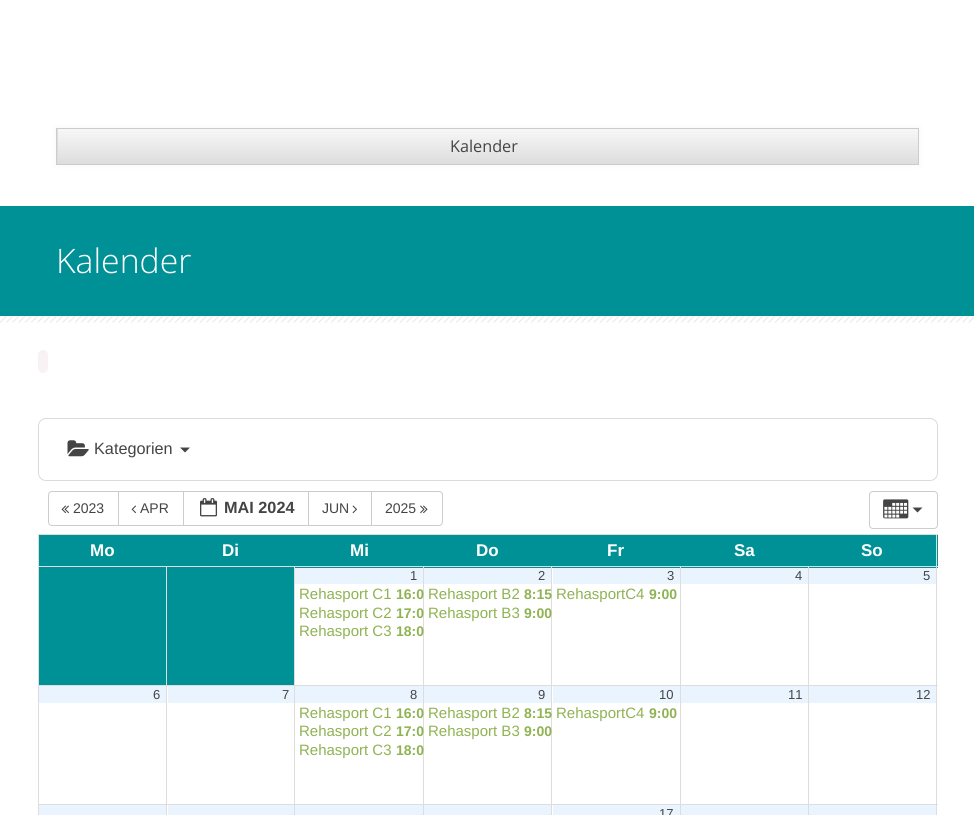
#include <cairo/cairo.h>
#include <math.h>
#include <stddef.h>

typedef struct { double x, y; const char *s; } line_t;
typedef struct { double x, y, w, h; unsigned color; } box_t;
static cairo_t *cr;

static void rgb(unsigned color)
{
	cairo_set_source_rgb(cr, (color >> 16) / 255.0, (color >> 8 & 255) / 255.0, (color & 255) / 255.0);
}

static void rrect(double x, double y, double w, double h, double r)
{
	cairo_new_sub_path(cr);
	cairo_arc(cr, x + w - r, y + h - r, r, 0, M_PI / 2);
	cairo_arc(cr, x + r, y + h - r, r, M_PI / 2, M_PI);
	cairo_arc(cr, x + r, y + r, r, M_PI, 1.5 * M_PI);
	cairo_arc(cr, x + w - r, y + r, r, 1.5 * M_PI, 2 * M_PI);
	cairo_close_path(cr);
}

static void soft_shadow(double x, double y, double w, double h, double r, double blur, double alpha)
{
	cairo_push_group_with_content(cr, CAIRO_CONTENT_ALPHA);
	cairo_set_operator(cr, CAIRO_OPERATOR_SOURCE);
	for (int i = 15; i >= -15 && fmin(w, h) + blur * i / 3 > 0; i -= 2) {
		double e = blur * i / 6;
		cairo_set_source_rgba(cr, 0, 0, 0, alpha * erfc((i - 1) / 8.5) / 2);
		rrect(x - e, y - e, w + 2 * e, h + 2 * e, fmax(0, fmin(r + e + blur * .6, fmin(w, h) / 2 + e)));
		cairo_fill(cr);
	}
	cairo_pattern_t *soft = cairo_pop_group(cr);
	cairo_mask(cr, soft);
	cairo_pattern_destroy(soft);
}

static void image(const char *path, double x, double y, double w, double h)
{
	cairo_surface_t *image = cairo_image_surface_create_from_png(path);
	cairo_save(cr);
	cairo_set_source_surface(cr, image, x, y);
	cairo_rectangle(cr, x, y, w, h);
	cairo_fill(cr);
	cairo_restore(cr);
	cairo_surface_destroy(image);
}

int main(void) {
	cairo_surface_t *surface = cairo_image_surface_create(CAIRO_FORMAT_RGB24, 974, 815);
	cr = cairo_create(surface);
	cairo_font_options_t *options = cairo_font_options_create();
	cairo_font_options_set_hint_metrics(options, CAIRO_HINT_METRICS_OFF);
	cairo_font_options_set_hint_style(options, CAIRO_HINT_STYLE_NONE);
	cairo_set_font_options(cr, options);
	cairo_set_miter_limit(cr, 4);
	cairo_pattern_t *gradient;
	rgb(0xffffff);
	cairo_paint(cr);
	rgb(0x323232);
	soft_shadow(56, 128, 863, 37, 0, 3, 0.05);
	rgb(0xdddddd);
	cairo_rectangle(cr, 57, 129, 1, 35);
	cairo_fill(cr);
	gradient = cairo_pattern_create_linear(488, 129, 488, 164);
	cairo_pattern_add_color_stop_rgba(gradient, 0, 0.969, 0.969, 0.969, 1);
	cairo_pattern_add_color_stop_rgba(gradient, 1, 0.867, 0.867, 0.867, 1);
	cairo_set_source(cr, gradient);
	cairo_pattern_destroy(gradient);
	cairo_rectangle(cr, 58, 129, 860, 35);
	cairo_fill(cr);
	cairo_rectangle(cr, 56.5, 128.5, 862, 36);
	rgb(0xcccccc);
	cairo_set_line_width(cr, 1);
	cairo_stroke(cr);
	rgb(0x009196);
	cairo_rectangle(cr, 0, 206, 974, 110);
	cairo_fill(cr);
	image("img/1.png", 0, 316, 974, 7);
	rgb(0xf9f2f4);
	rrect(38, 350, 10, 23, 5);
	cairo_fill(cr);
	rrect(38.5, 418.5, 899, 62, 7.5);
	rgb(0xdbdbdb);
	cairo_stroke(cr);
	image("img/2.png", 67, 440, 22, 17);
	rgb(0x444444);
	cairo_new_path(cr);
	cairo_move_to(cr, 180, 447.5);
	cairo_line_to(cr, 190, 447.5);
	cairo_line_to(cr, 185, 452.5);
	cairo_close_path(cr);
	cairo_fill(cr);
	cairo_new_path(cr);
	cairo_move_to(cr, 52, 491.5);
	cairo_line_to(cr, 118.5, 491.5);
	cairo_line_to(cr, 118.5, 525.5);
	cairo_line_to(cr, 52, 525.5);
	cairo_curve_to(cr, 50, 525.5, 48.5, 524, 48.5, 522);
	cairo_line_to(cr, 48.5, 495);
	cairo_curve_to(cr, 48.5, 493, 50, 491.5, 52, 491.5);
	cairo_close_path(cr);
	rgb(0xcccccc);
	cairo_stroke(cr);
	image("img/3.png", 61, 505, 8, 9);
	cairo_rectangle(cr, 118.5, 491.5, 65, 34);
	cairo_stroke(cr);
	image("img/4.png", 131, 505, 5, 9);
	cairo_rectangle(cr, 183.5, 491.5, 125, 34);
	cairo_stroke(cr);
	image("img/5.png", 200, 498, 18, 19);
	cairo_rectangle(cr, 308.5, 491.5, 64, 34);
	cairo_stroke(cr);
	image("img/6.png", 352, 505, 5, 9);
	rgb(0xffffff);
	cairo_new_path(cr);
	cairo_move_to(cr, 371.5, 491.5);
	cairo_line_to(cr, 439, 491.5);
	cairo_curve_to(cr, 441, 491.5, 442.5, 493, 442.5, 495);
	cairo_line_to(cr, 442.5, 522);
	cairo_curve_to(cr, 442.5, 524, 441, 525.5, 439, 525.5);
	cairo_line_to(cr, 371.5, 525.5);
	cairo_close_path(cr);
	cairo_fill_preserve(cr);
	rgb(0xcccccc);
	cairo_stroke(cr);
	image("img/7.png", 420, 505, 8, 9);
	rrect(869.5, 491.5, 68, 37, 3.5);
	cairo_stroke(cr);
	image("img/8.png", 883, 499, 26, 20);
	rgb(0x444444);
	cairo_new_path(cr);
	cairo_move_to(cr, 912.5, 507.5);
	cairo_line_to(cr, 922.5, 507.5);
	cairo_line_to(cr, 917.5, 512.5);
	cairo_close_path(cr);
	cairo_fill(cr);
	{
		static const box_t items[] = {
			{38, 534, 900, 1, 0xdddddd},
			{39, 535, 899, 33, 0x009196},
			{936, 534, 1, 281, 0xdddddd},
			{38, 534, 1, 281, 0xdddddd},
			{39, 568, 127, 117, 0x009196},
			{808, 566, 130, 1, 0xdddddd},
			{808, 685, 130, 1, 0xdddddd},
			{808, 804, 130, 1, 0xdddddd},
			{808, 804, 1, 11, 0xdddddd},
			{680, 804, 129, 1, 0xdddddd},
			{808, 685, 1, 120, 0xdddddd},
			{680, 685, 129, 1, 0xdddddd},
			{808, 566, 1, 120, 0xdddddd},
			{680, 566, 129, 1, 0xdddddd},
			{680, 804, 1, 11, 0xdddddd},
			{551, 804, 130, 1, 0xdddddd},
			{680, 685, 1, 120, 0xdddddd},
			{551, 685, 130, 1, 0xdddddd},
			{680, 566, 1, 120, 0xdddddd},
			{551, 566, 130, 1, 0xdddddd},
			{551, 804, 1, 11, 0xdddddd},
			{423, 804, 130, 1, 0xdddddd},
			{551, 685, 1, 120, 0xdddddd},
			{423, 685, 130, 1, 0xdddddd},
			{551, 566, 1, 120, 0xdddddd},
			{423, 566, 130, 1, 0xdddddd},
			{423, 804, 1, 11, 0xdddddd},
			{294, 804, 130, 1, 0xdddddd},
			{423, 685, 1, 120, 0xdddddd},
			{294, 685, 130, 1, 0xdddddd},
			{423, 566, 1, 120, 0xdddddd},
			{294, 566, 130, 1, 0xdddddd},
			{294, 804, 1, 11, 0xdddddd},
			{166, 804, 129, 1, 0xdddddd},
			{294, 685, 1, 120, 0xdddddd},
			{166, 685, 129, 1, 0xdddddd},
			{294, 566, 1, 120, 0xdddddd},
			{166, 566, 129, 1, 0xdddddd},
			{166, 804, 1, 11, 0xdddddd},
			{38, 804, 130, 1, 0xdddddd},
			{166, 685, 1, 120, 0xdddddd},
			{38, 685, 130, 1, 0xdddddd},
			{166, 566, 1, 120, 0xdddddd},
			{38, 566, 130, 1, 0xdddddd},
			{167, 568, 127, 117, 0x009196},
			{295, 568, 128, 16, 0xeaf4ff},
			{424, 568, 127, 16, 0xeaf4ff},
			{553, 568, 127, 16, 0xeaf4ff},
			{681, 568, 127, 16, 0xeaf4ff},
			{809, 568, 127, 16, 0xeaf4ff},
			{39, 686, 127, 17, 0xeaf4ff},
			{168, 686, 126, 17, 0xeaf4ff},
			{295, 686, 128, 17, 0xeaf4ff},
			{424, 686, 127, 17, 0xeaf4ff},
			{553, 686, 127, 17, 0xeaf4ff},
			{681, 686, 127, 17, 0xeaf4ff},
			{809, 686, 127, 17, 0xeaf4ff},
			{39, 805, 127, 10, 0xeaf4ff},
			{168, 805, 126, 10, 0xeaf4ff},
			{295, 805, 128, 10, 0xeaf4ff},
			{424, 805, 127, 10, 0xeaf4ff},
			{553, 805, 127, 10, 0xeaf4ff},
			{681, 805, 127, 10, 0xeaf4ff},
			{809, 805, 127, 10, 0xeaf4ff},
		};
		for (size_t i = 0; i < sizeof items / sizeof *items; i++) {
			rgb(items[i].color);
			cairo_rectangle(cr, items[i].x, items[i].y, items[i].w, items[i].h);
			cairo_fill(cr);
		}
	}
	cairo_select_font_face(cr, "Open Sans", CAIRO_FONT_SLANT_NORMAL, CAIRO_FONT_WEIGHT_NORMAL);
	cairo_set_font_size(cr, 16.25);
	rgb(0x444444);
	cairo_move_to(cr, 450, 152);
	cairo_show_text(cr, "Kalender");
	cairo_select_font_face(cr, "Open Sans Light", CAIRO_FONT_SLANT_NORMAL, CAIRO_FONT_WEIGHT_NORMAL);
	cairo_set_font_size(cr, 33.75);
	rgb(0xffffff);
	cairo_move_to(cr, 56, 273);
	cairo_show_text(cr, "Kalender");
	cairo_select_font_face(cr, "Liberation Sans", CAIRO_FONT_SLANT_NORMAL, CAIRO_FONT_WEIGHT_NORMAL);
	cairo_set_font_size(cr, 16.25);
	rgb(0x444444);
	cairo_move_to(cr, 94, 454);
	cairo_show_text(cr, "Kategorien");
	cairo_set_font_size(cr, 14);
	cairo_move_to(cr, 73, 513);
	cairo_show_text(cr, "2023");
	cairo_move_to(cr, 140, 513);
	cairo_show_text(cr, "APR");
	cairo_select_font_face(cr, "Liberation Sans", CAIRO_FONT_SLANT_NORMAL, CAIRO_FONT_WEIGHT_BOLD);
	cairo_set_font_size(cr, 16.25);
	cairo_move_to(cr, 224, 513);
	cairo_show_text(cr, "MAI 2024");
	cairo_select_font_face(cr, "Liberation Sans", CAIRO_FONT_SLANT_NORMAL, CAIRO_FONT_WEIGHT_NORMAL);
	cairo_set_font_size(cr, 14);
	cairo_move_to(cr, 322, 513);
	cairo_show_text(cr, "JUN");
	cairo_move_to(cr, 385, 513);
	cairo_show_text(cr, "2025");
	cairo_select_font_face(cr, "Liberation Sans", CAIRO_FONT_SLANT_NORMAL, CAIRO_FONT_WEIGHT_BOLD);
	cairo_set_font_size(cr, 17);
	rgb(0xffffff);
	{
		static const line_t items[] = {
			{90, 556, "Mo"},
			{222, 556, "Di"},
			{350, 556, "Mi"},
			{476, 556, "Do"},
			{607, 556, "Fr"},
			{734, 556, "Sa"},
			{861, 556, "So"},
		};
		for (size_t i = 0; i < sizeof items / sizeof *items; i++) {
			cairo_move_to(cr, items[i].x, items[i].y);
			cairo_show_text(cr, items[i].s);
		}
	}
	cairo_select_font_face(cr, "Liberation Sans", CAIRO_FONT_SLANT_NORMAL, CAIRO_FONT_WEIGHT_NORMAL);
	cairo_set_font_size(cr, 13);
	rgb(0x444444);
	cairo_move_to(cr, 410, 580);
	cairo_show_text(cr, "1");
	cairo_set_font_size(cr, 15);
	rgb(0x8fb352);
	cairo_move_to(cr, 299, 599);
	cairo_show_text(cr, "Rehasport C1");
	cairo_select_font_face(cr, "Liberation Sans", CAIRO_FONT_SLANT_NORMAL, CAIRO_FONT_WEIGHT_BOLD);
	cairo_set_font_size(cr, 14);
	cairo_move_to(cr, 396, 599);
	cairo_show_text(cr, "16:0");
	cairo_select_font_face(cr, "Liberation Sans", CAIRO_FONT_SLANT_NORMAL, CAIRO_FONT_WEIGHT_NORMAL);
	cairo_set_font_size(cr, 15);
	cairo_move_to(cr, 299, 618);
	cairo_show_text(cr, "Rehasport C2");
	cairo_select_font_face(cr, "Liberation Sans", CAIRO_FONT_SLANT_NORMAL, CAIRO_FONT_WEIGHT_BOLD);
	cairo_set_font_size(cr, 14);
	cairo_move_to(cr, 396, 618);
	cairo_show_text(cr, "17:0");
	cairo_select_font_face(cr, "Liberation Sans", CAIRO_FONT_SLANT_NORMAL, CAIRO_FONT_WEIGHT_NORMAL);
	cairo_set_font_size(cr, 15);
	cairo_move_to(cr, 299, 636);
	cairo_show_text(cr, "Rehasport C3");
	cairo_select_font_face(cr, "Liberation Sans", CAIRO_FONT_SLANT_NORMAL, CAIRO_FONT_WEIGHT_BOLD);
	cairo_set_font_size(cr, 14);
	cairo_move_to(cr, 396, 636);
	cairo_show_text(cr, "18:0");
	cairo_select_font_face(cr, "Liberation Sans", CAIRO_FONT_SLANT_NORMAL, CAIRO_FONT_WEIGHT_NORMAL);
	cairo_set_font_size(cr, 13);
	rgb(0x444444);
	cairo_move_to(cr, 538, 580);
	cairo_show_text(cr, "2");
	cairo_set_font_size(cr, 15);
	rgb(0x8fb352);
	cairo_move_to(cr, 428, 599);
	cairo_show_text(cr, "Rehasport B2");
	cairo_select_font_face(cr, "Liberation Sans", CAIRO_FONT_SLANT_NORMAL, CAIRO_FONT_WEIGHT_BOLD);
	cairo_set_font_size(cr, 14);
	cairo_move_to(cr, 524, 599);
	cairo_show_text(cr, "8:15");
	cairo_select_font_face(cr, "Liberation Sans", CAIRO_FONT_SLANT_NORMAL, CAIRO_FONT_WEIGHT_NORMAL);
	cairo_set_font_size(cr, 15);
	cairo_move_to(cr, 428, 618);
	cairo_show_text(cr, "Rehasport B3");
	cairo_select_font_face(cr, "Liberation Sans", CAIRO_FONT_SLANT_NORMAL, CAIRO_FONT_WEIGHT_BOLD);
	cairo_set_font_size(cr, 14);
	cairo_move_to(cr, 524, 618);
	cairo_show_text(cr, "9:00");
	cairo_select_font_face(cr, "Liberation Sans", CAIRO_FONT_SLANT_NORMAL, CAIRO_FONT_WEIGHT_NORMAL);
	cairo_set_font_size(cr, 13);
	rgb(0x444444);
	cairo_move_to(cr, 667, 580);
	cairo_show_text(cr, "3");
	cairo_set_font_size(cr, 15);
	rgb(0x8fb352);
	cairo_move_to(cr, 556, 599);
	cairo_show_text(cr, "RehasportC4");
	cairo_select_font_face(cr, "Liberation Sans", CAIRO_FONT_SLANT_NORMAL, CAIRO_FONT_WEIGHT_BOLD);
	cairo_set_font_size(cr, 14);
	cairo_move_to(cr, 649, 599);
	cairo_show_text(cr, "9:00");
	cairo_select_font_face(cr, "Liberation Sans", CAIRO_FONT_SLANT_NORMAL, CAIRO_FONT_WEIGHT_NORMAL);
	cairo_set_font_size(cr, 13);
	rgb(0x444444);
	{
		static const line_t items[] = {
			{795, 580, "4"},
			{923, 580, "5"},
			{153, 699, "6"},
			{282, 699, "7"},
			{410, 699, "8"},
		};
		for (size_t i = 0; i < sizeof items / sizeof *items; i++) {
			cairo_move_to(cr, items[i].x, items[i].y);
			cairo_show_text(cr, items[i].s);
		}
	}
	cairo_set_font_size(cr, 15);
	rgb(0x8fb352);
	cairo_move_to(cr, 299, 718);
	cairo_show_text(cr, "Rehasport C1");
	cairo_select_font_face(cr, "Liberation Sans", CAIRO_FONT_SLANT_NORMAL, CAIRO_FONT_WEIGHT_BOLD);
	cairo_set_font_size(cr, 14);
	cairo_move_to(cr, 396, 718);
	cairo_show_text(cr, "16:0");
	cairo_select_font_face(cr, "Liberation Sans", CAIRO_FONT_SLANT_NORMAL, CAIRO_FONT_WEIGHT_NORMAL);
	cairo_set_font_size(cr, 15);
	cairo_move_to(cr, 299, 736);
	cairo_show_text(cr, "Rehasport C2");
	cairo_select_font_face(cr, "Liberation Sans", CAIRO_FONT_SLANT_NORMAL, CAIRO_FONT_WEIGHT_BOLD);
	cairo_set_font_size(cr, 14);
	cairo_move_to(cr, 396, 736);
	cairo_show_text(cr, "17:0");
	cairo_select_font_face(cr, "Liberation Sans", CAIRO_FONT_SLANT_NORMAL, CAIRO_FONT_WEIGHT_NORMAL);
	cairo_set_font_size(cr, 15);
	cairo_move_to(cr, 299, 755);
	cairo_show_text(cr, "Rehasport C3");
	cairo_select_font_face(cr, "Liberation Sans", CAIRO_FONT_SLANT_NORMAL, CAIRO_FONT_WEIGHT_BOLD);
	cairo_set_font_size(cr, 14);
	cairo_move_to(cr, 396, 755);
	cairo_show_text(cr, "18:0");
	cairo_select_font_face(cr, "Liberation Sans", CAIRO_FONT_SLANT_NORMAL, CAIRO_FONT_WEIGHT_NORMAL);
	cairo_set_font_size(cr, 13);
	rgb(0x444444);
	cairo_move_to(cr, 538, 699);
	cairo_show_text(cr, "9");
	cairo_set_font_size(cr, 15);
	rgb(0x8fb352);
	cairo_move_to(cr, 428, 718);
	cairo_show_text(cr, "Rehasport B2");
	cairo_select_font_face(cr, "Liberation Sans", CAIRO_FONT_SLANT_NORMAL, CAIRO_FONT_WEIGHT_BOLD);
	cairo_set_font_size(cr, 14);
	cairo_move_to(cr, 524, 718);
	cairo_show_text(cr, "8:15");
	cairo_select_font_face(cr, "Liberation Sans", CAIRO_FONT_SLANT_NORMAL, CAIRO_FONT_WEIGHT_NORMAL);
	cairo_set_font_size(cr, 15);
	cairo_move_to(cr, 428, 736);
	cairo_show_text(cr, "Rehasport B3");
	cairo_select_font_face(cr, "Liberation Sans", CAIRO_FONT_SLANT_NORMAL, CAIRO_FONT_WEIGHT_BOLD);
	cairo_set_font_size(cr, 14);
	cairo_move_to(cr, 524, 736);
	cairo_show_text(cr, "9:00");
	cairo_select_font_face(cr, "Liberation Sans", CAIRO_FONT_SLANT_NORMAL, CAIRO_FONT_WEIGHT_NORMAL);
	cairo_set_font_size(cr, 13);
	rgb(0x444444);
	cairo_move_to(cr, 659, 699);
	cairo_show_text(cr, "10");
	cairo_set_font_size(cr, 15);
	rgb(0x8fb352);
	cairo_move_to(cr, 556, 718);
	cairo_show_text(cr, "RehasportC4");
	cairo_select_font_face(cr, "Liberation Sans", CAIRO_FONT_SLANT_NORMAL, CAIRO_FONT_WEIGHT_BOLD);
	cairo_set_font_size(cr, 14);
	cairo_move_to(cr, 649, 718);
	cairo_show_text(cr, "9:00");
	cairo_select_font_face(cr, "Liberation Sans", CAIRO_FONT_SLANT_NORMAL, CAIRO_FONT_WEIGHT_NORMAL);
	cairo_set_font_size(cr, 13);
	rgb(0x444444);
	{
		static const line_t items[] = {
			{788, 699, "11"},
			{916, 699, "12"},
			{659, 818, "17"},
		};
		for (size_t i = 0; i < sizeof items / sizeof *items; i++) {
			cairo_move_to(cr, items[i].x, items[i].y);
			cairo_show_text(cr, items[i].s);
		}
	}
	cairo_surface_write_to_png(surface, "page.png");
	cairo_font_options_destroy(options);
	cairo_destroy(cr);
	cairo_surface_destroy(surface);
	return 0;
}
